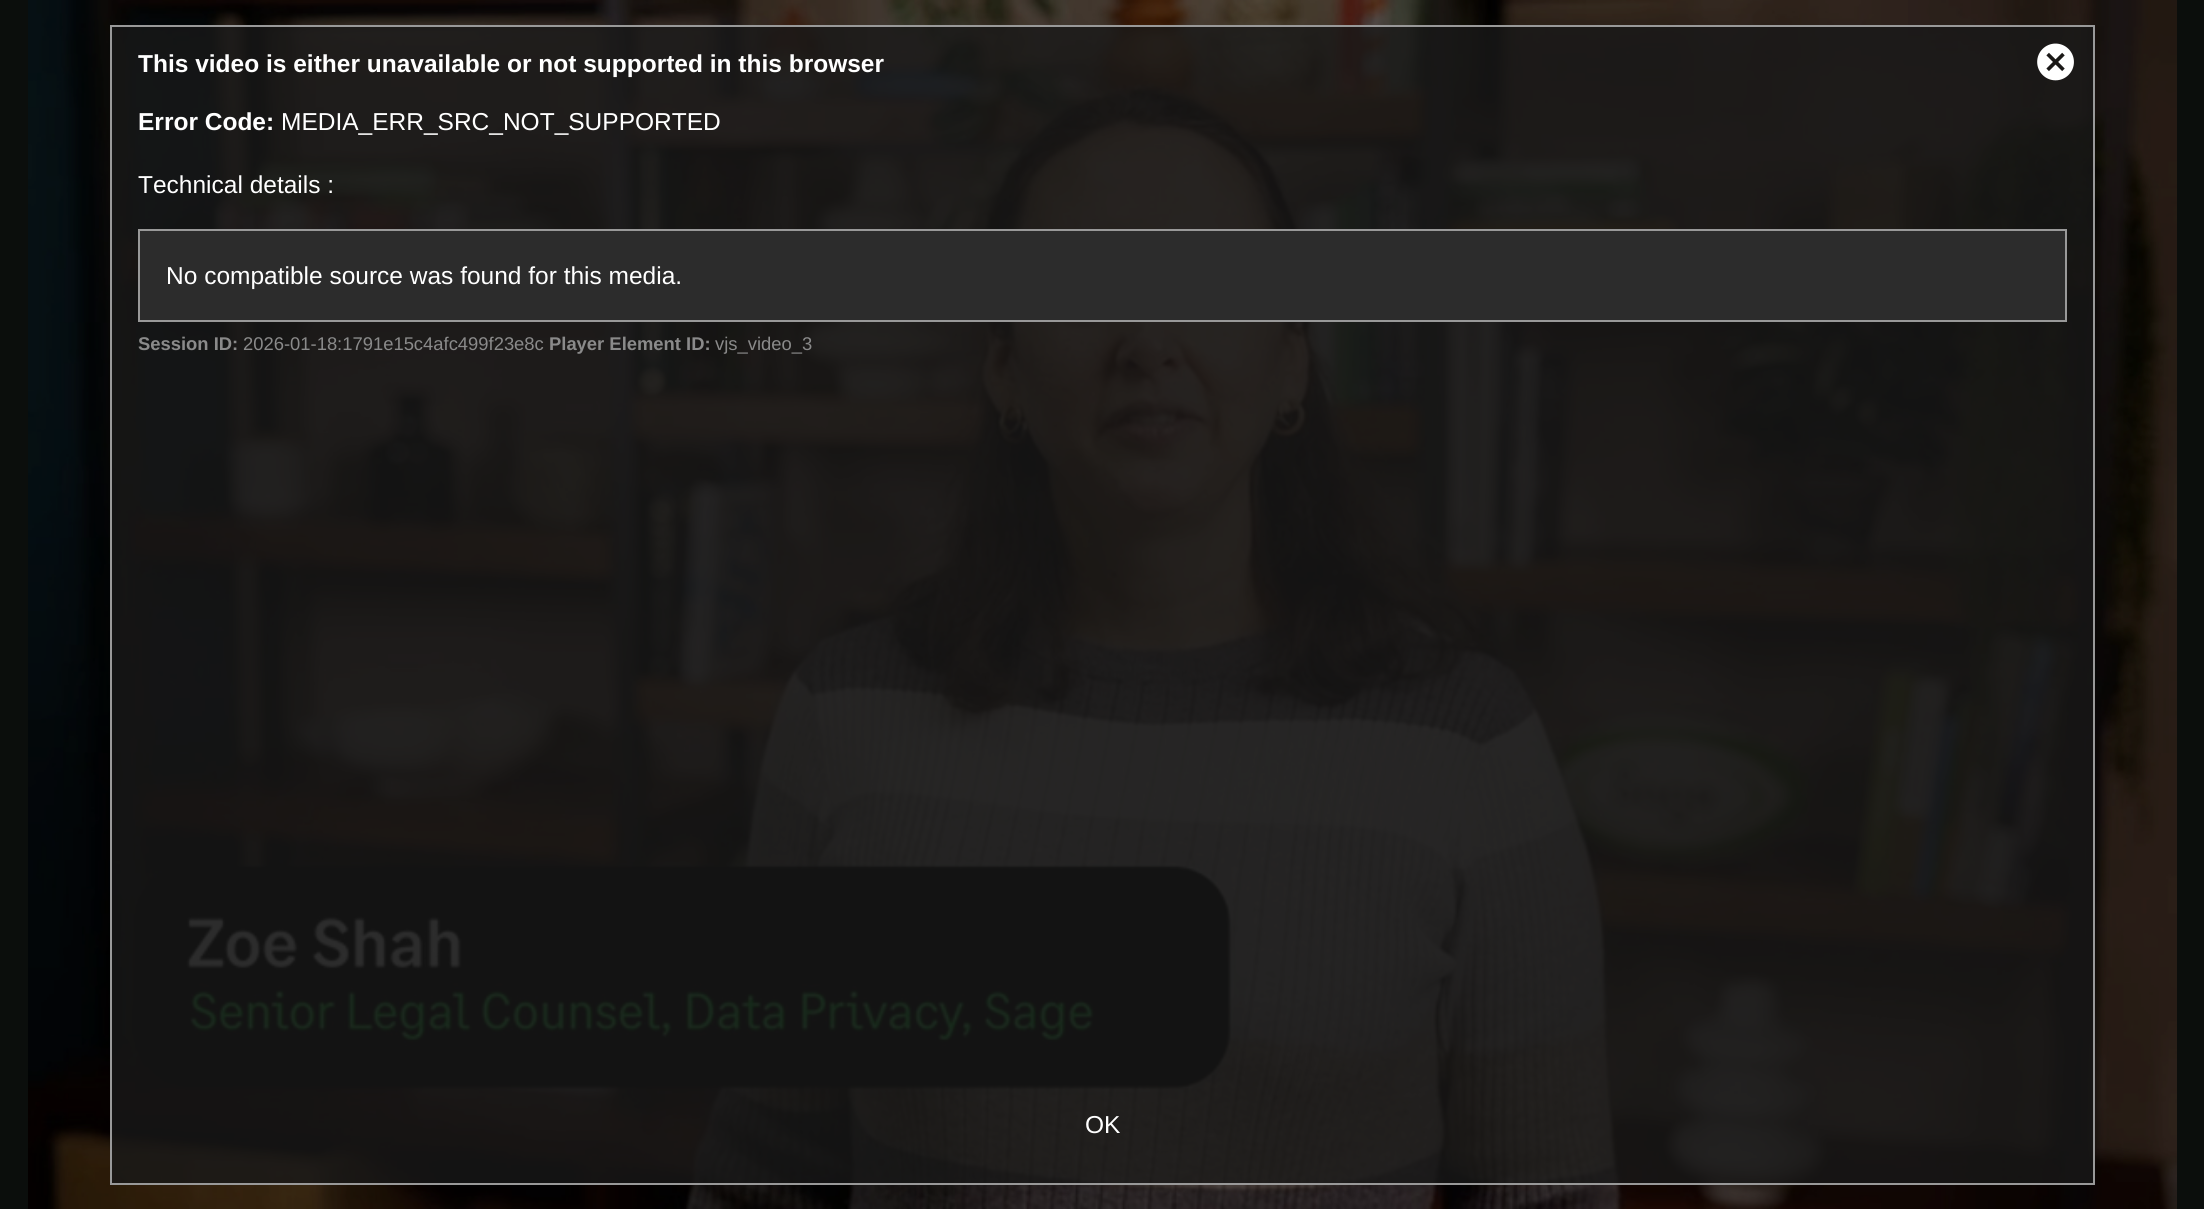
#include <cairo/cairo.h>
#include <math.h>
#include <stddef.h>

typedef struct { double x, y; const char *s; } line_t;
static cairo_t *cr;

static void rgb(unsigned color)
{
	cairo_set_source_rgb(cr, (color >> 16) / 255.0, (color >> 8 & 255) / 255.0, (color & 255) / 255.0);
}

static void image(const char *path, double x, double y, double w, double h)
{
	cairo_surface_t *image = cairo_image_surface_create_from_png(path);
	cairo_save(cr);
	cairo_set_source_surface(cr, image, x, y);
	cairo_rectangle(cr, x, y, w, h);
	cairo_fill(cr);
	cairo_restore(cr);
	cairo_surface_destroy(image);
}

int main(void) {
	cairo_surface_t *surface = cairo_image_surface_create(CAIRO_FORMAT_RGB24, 2204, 1209);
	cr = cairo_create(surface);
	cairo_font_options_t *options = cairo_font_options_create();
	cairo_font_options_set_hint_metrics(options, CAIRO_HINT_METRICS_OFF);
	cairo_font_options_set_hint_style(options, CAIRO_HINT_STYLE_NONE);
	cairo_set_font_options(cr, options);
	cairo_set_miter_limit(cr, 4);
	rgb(0x0b0e0c);
	cairo_paint(cr);
	image("img/1.png", 28, 0, 2149, 1209);
	cairo_set_source_rgba(cr, 0.094, 0.094, 0.094, 0.8);
	cairo_rectangle(cr, 111, 26, 1983, 1158);
	cairo_fill_preserve(cr);
	rgb(0x999999);
	cairo_stroke(cr);
	rgb(0x2c2c2c);
	cairo_rectangle(cr, 139, 230, 1927, 91);
	cairo_fill_preserve(cr);
	rgb(0x999999);
	cairo_stroke(cr);
	image("img/2.png", 2037, 43, 37, 38);
	cairo_select_font_face(cr, "Liberation Sans", CAIRO_FONT_SLANT_NORMAL, CAIRO_FONT_WEIGHT_BOLD);
	cairo_set_font_size(cr, 24.5);
	rgb(0xffffff);
	cairo_move_to(cr, 138, 72);
	cairo_show_text(cr, "This video is either unavailable or not supported in this browser");
	cairo_move_to(cr, 138, 130);
	cairo_show_text(cr, "Error Code:");
	cairo_select_font_face(cr, "Liberation Sans", CAIRO_FONT_SLANT_NORMAL, CAIRO_FONT_WEIGHT_NORMAL);
	{
		static const line_t items[] = {
			{281, 130, "MEDIA_ERR_SRC_NOT_SUPPORTED"},
			{138, 193, "Technical details :"},
			{166, 284, "No compatible source was found for this media."},
		};
		for (size_t i = 0; i < sizeof items / sizeof *items; i++) {
			cairo_move_to(cr, items[i].x, items[i].y);
			cairo_show_text(cr, items[i].s);
		}
	}
	cairo_select_font_face(cr, "Liberation Sans", CAIRO_FONT_SLANT_NORMAL, CAIRO_FONT_WEIGHT_BOLD);
	cairo_set_font_size(cr, 18.4);
	rgb(0x8a8a8a);
	cairo_move_to(cr, 138, 350);
	cairo_show_text(cr, "Session ID:");
	cairo_select_font_face(cr, "Liberation Sans", CAIRO_FONT_SLANT_NORMAL, CAIRO_FONT_WEIGHT_NORMAL);
	cairo_move_to(cr, 243, 350);
	cairo_show_text(cr, "2026-01-18:1791e15c4afc499f23e8c");
	cairo_select_font_face(cr, "Liberation Sans", CAIRO_FONT_SLANT_NORMAL, CAIRO_FONT_WEIGHT_BOLD);
	cairo_move_to(cr, 549, 350);
	cairo_show_text(cr, "Player Element ID:");
	cairo_select_font_face(cr, "Liberation Sans", CAIRO_FONT_SLANT_NORMAL, CAIRO_FONT_WEIGHT_NORMAL);
	cairo_move_to(cr, 715, 350);
	cairo_show_text(cr, "vjs_video_3");
	cairo_set_font_size(cr, 24.5);
	rgb(0xffffff);
	cairo_move_to(cr, 1085, 1133);
	cairo_show_text(cr, "OK");
	cairo_surface_write_to_png(surface, "page.png");
	cairo_font_options_destroy(options);
	cairo_destroy(cr);
	cairo_surface_destroy(surface);
	return 0;
}
